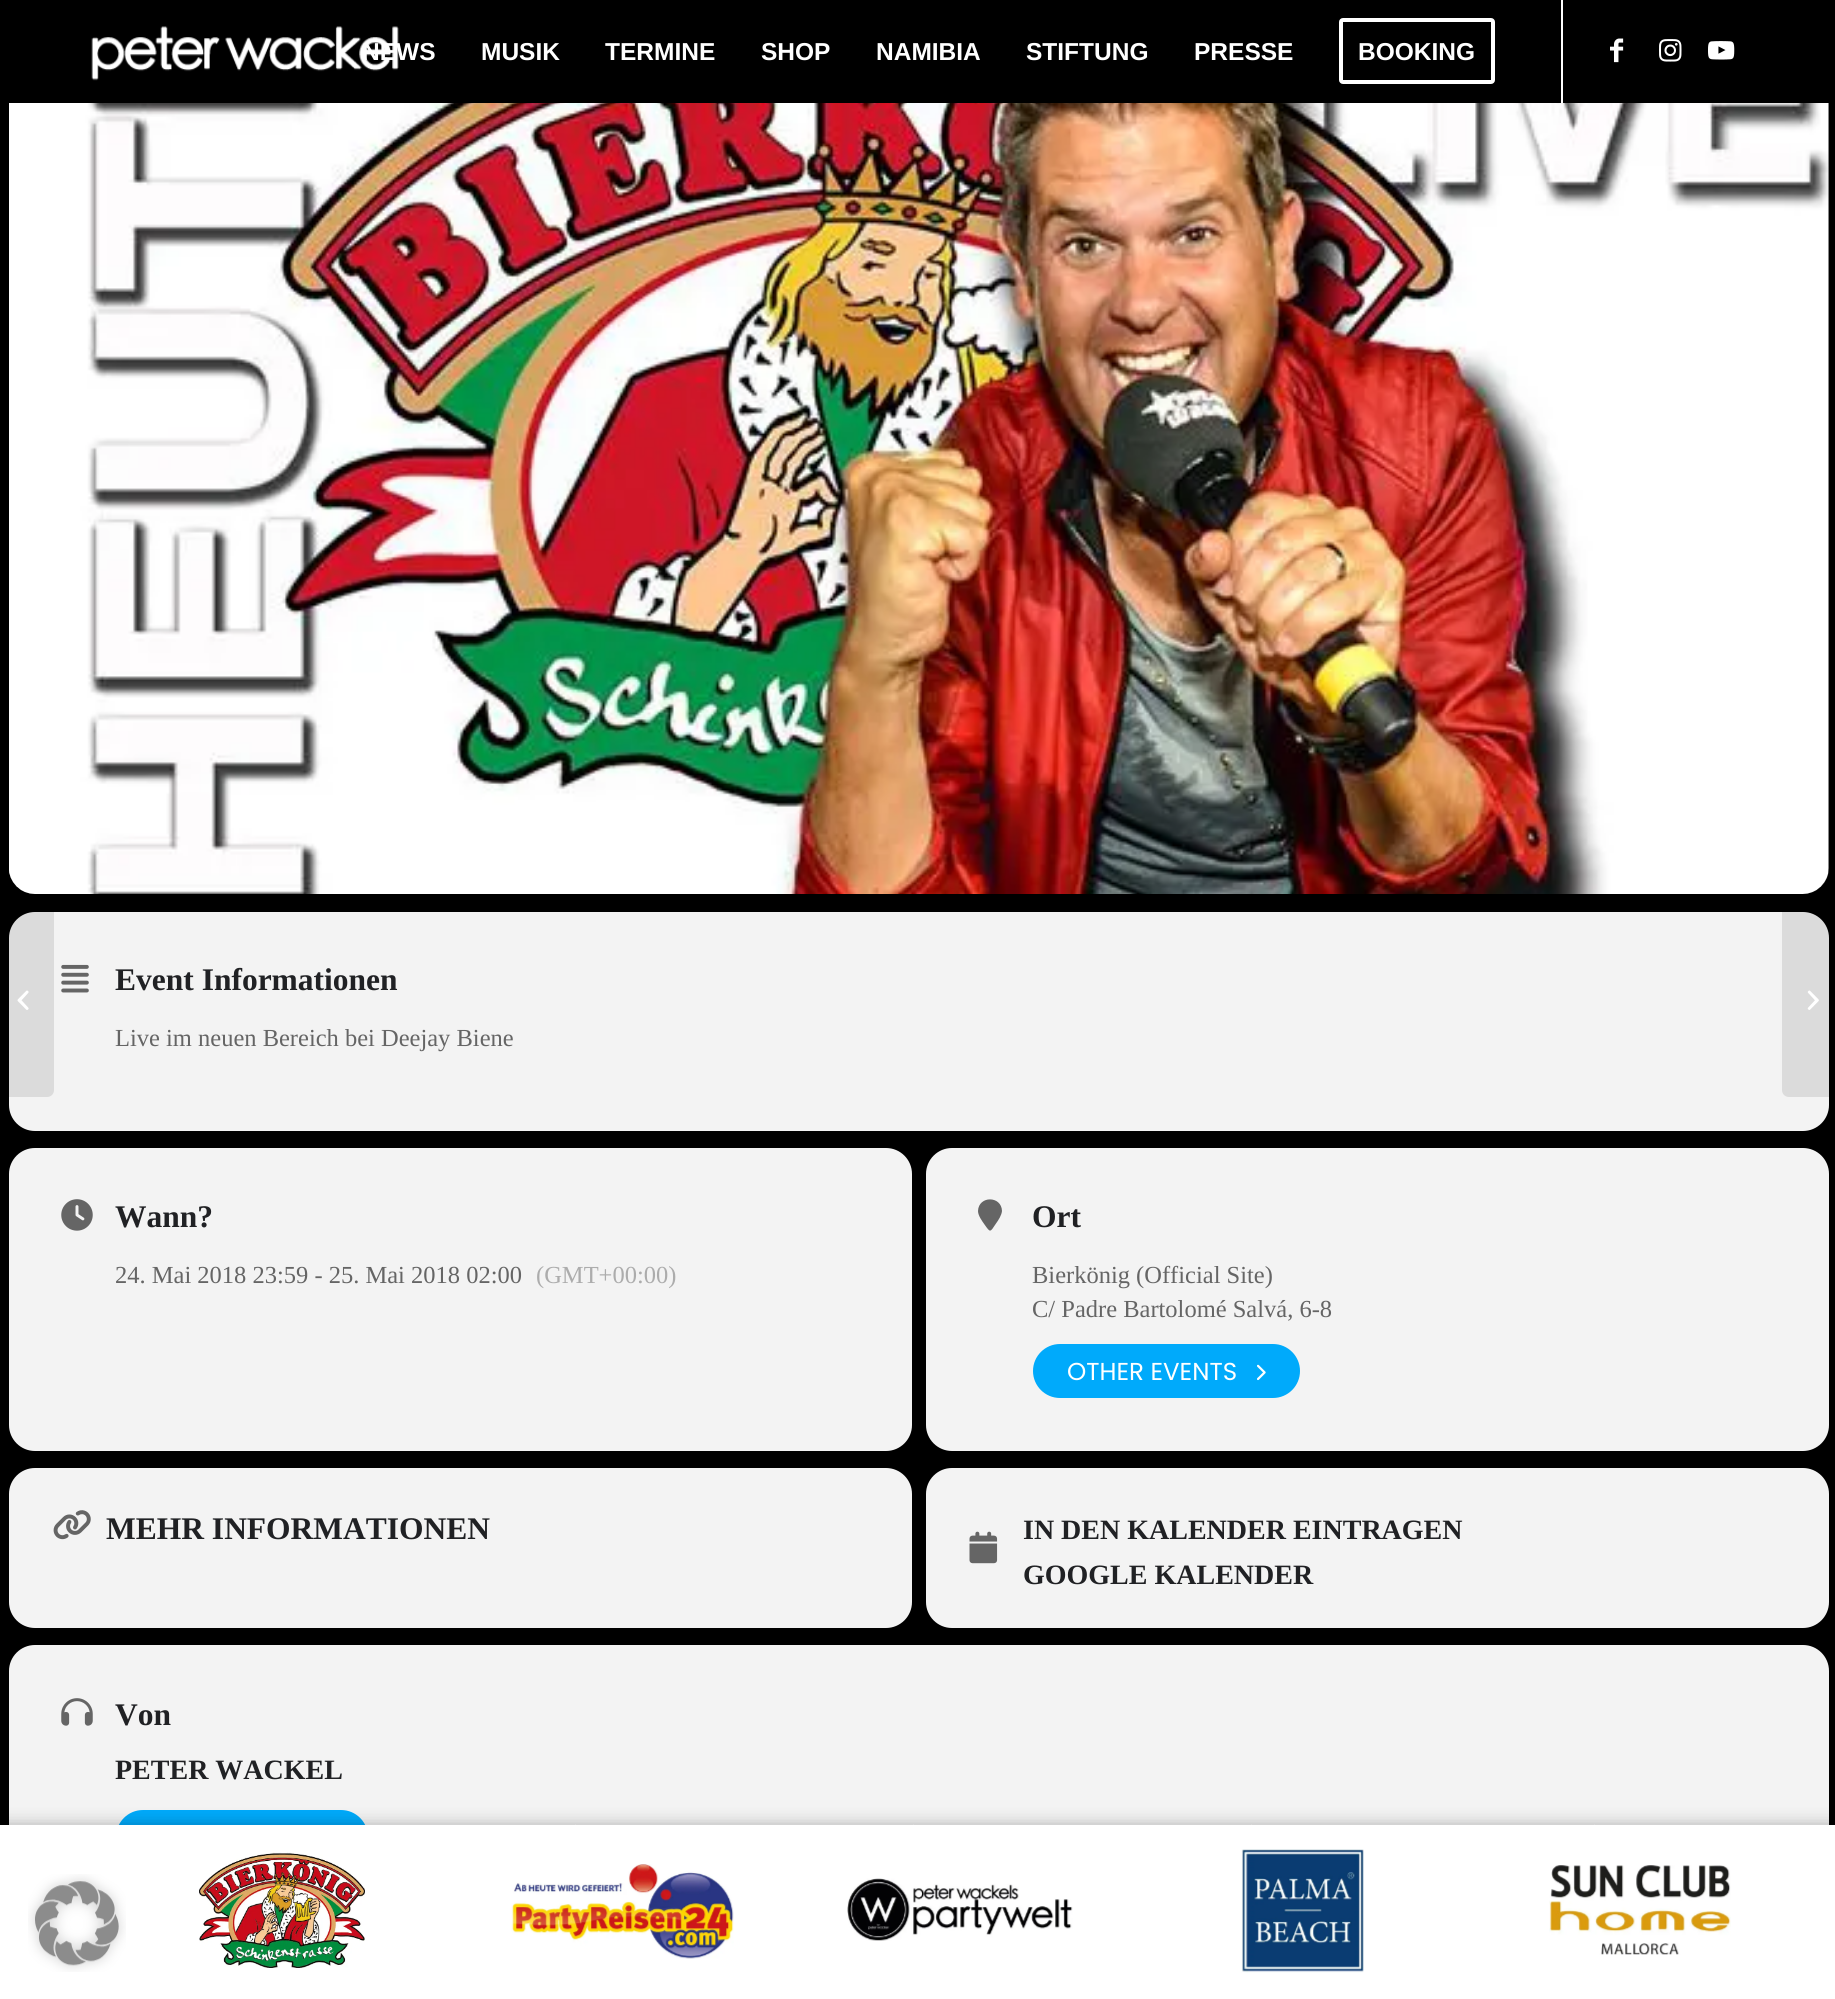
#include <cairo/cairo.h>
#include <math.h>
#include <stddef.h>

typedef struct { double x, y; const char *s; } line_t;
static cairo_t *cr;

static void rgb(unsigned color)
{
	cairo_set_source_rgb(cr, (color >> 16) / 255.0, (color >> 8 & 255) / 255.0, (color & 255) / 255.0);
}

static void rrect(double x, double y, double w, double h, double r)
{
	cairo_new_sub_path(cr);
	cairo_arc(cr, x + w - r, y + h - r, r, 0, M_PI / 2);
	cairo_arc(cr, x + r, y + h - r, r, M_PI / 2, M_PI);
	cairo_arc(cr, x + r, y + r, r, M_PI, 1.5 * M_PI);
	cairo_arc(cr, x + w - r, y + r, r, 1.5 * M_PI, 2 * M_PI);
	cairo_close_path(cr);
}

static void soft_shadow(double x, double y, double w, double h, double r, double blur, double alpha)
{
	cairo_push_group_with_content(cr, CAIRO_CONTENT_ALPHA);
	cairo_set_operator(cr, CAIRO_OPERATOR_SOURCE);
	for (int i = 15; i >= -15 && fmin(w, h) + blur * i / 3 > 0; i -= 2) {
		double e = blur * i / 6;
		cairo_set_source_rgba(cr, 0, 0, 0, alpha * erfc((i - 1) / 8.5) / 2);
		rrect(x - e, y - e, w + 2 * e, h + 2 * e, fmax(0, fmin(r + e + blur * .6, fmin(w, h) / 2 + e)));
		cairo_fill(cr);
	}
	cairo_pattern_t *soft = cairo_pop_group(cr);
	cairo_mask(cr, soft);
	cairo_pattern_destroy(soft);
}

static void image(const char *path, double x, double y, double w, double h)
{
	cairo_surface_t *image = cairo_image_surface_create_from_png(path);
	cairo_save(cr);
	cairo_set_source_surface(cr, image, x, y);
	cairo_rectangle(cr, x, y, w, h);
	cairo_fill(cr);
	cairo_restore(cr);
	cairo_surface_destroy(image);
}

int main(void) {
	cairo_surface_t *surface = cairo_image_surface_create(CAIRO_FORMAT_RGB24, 1835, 1999);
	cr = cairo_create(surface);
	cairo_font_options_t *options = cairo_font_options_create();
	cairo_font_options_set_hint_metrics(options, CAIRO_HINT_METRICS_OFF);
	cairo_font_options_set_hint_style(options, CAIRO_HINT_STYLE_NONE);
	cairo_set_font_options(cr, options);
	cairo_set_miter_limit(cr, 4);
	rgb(0x000000);
	cairo_paint(cr);
	rgb(0x333333);
	rrect(9, -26, 1820, 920, 26);
	cairo_fill(cr);
	rgb(0x000000);
	cairo_rectangle(cr, 9, 0, 1820, 103);
	cairo_fill(cr);
	image("img/1.png", 91, 26, 308, 55);
	rgb(0xffffff);
	cairo_rectangle(cr, 1561, 0, 2, 103);
	cairo_fill(cr);
	rrect(1341, 20, 152, 62, 2);
	cairo_set_line_width(cr, 4);
	cairo_stroke(cr);
	image("img/2.png", 1610, 38, 14, 25);
	image("img/3.png", 1659, 39, 23, 23);
	image("img/4.png", 1708, 41, 27, 19);
	rgb(0xf3f3f3);
	rrect(9, 912, 1820, 219, 26);
	cairo_fill(cr);
	cairo_set_source_rgba(cr, 0, 0, 0, 0.1);
	cairo_new_path(cr);
	cairo_move_to(cr, 0, 905);
	cairo_line_to(cr, 47, 905);
	cairo_curve_to(cr, 51, 905, 54, 908, 54, 912);
	cairo_line_to(cr, 54, 1090);
	cairo_curve_to(cr, 54, 1094, 51, 1097, 47, 1097);
	cairo_line_to(cr, 0, 1097);
	cairo_close_path(cr);
	cairo_fill(cr);
	image("img/5.png", 17, 990, 12, 20);
	image("img/6.png", 9, 103, 1820, 791);
	image("img/7.png", 61, 964, 28, 29);
	rgb(0xf3f3f3);
	rrect(9, 1148, 903, 303, 26);
	cairo_fill(cr);
	image("img/8.png", 61, 1199, 32, 32);
	rrect(926, 1148, 903, 303, 26);
	cairo_fill(cr);
	rgb(0x656565);
	cairo_new_path(cr);
	cairo_move_to(cr, 1002, 1211);
	cairo_curve_to(cr, 1001.5, 1215.5, 998.5, 1220, 996, 1223.5);
	cairo_curve_to(cr, 990, 1232.5, 990.5, 1233, 984.5, 1224.5);
	cairo_curve_to(cr, 982, 1221, 978, 1215.5, 978, 1211);
	cairo_curve_to(cr, 978.5, 1195.5, 1001.5, 1195.5, 1002, 1211);
	cairo_close_path(cr);
	cairo_fill(cr);
	rgb(0x00aafb);
	rrect(1033, 1344, 267, 54, 27);
	cairo_fill(cr);
	image("img/9.png", 1257, 1364, 9, 17);
	rgb(0xf3f3f3);
	rrect(9, 1468, 903, 160, 26);
	cairo_fill(cr);
	image("img/10.png", 53, 1510, 38, 30);
	rrect(926, 1468, 903, 160, 26);
	cairo_fill(cr);
	image("img/11.png", 969, 1531, 29, 33);
	rrect(9, 1645, 1820, 271, 26);
	cairo_fill(cr);
	image("img/12.png", 61, 1698, 32, 28);
	rgb(0x00aafb);
	rrect(116, 1810, 252, 54, 27);
	cairo_fill(cr);
	rgb(0x000000);
	soft_shadow(4, 1827, 1828, 168, 0, 9, 0.36);
	rgb(0xffffff);
	cairo_rectangle(cr, 0, 1825, 1835, 174);
	cairo_fill(cr);
	cairo_new_path(cr);
	cairo_move_to(cr, 575.5, 1838.5);
	cairo_curve_to(cr, 568, 1838.5, 562, 1839, 558, 1846);
	cairo_curve_to(cr, 560, 1838, 566.5, 1830.5, 575.5, 1830.5);
	cairo_line_to(cr, 575.5, 1824.5);
	cairo_line_to(cr, 586.5, 1834.5);
	cairo_line_to(cr, 575.5, 1845);
	cairo_close_path(cr);
	cairo_fill(cr);
	image("img/13.png", 199, 1852, 166, 116);
	cairo_new_path(cr);
	cairo_move_to(cr, 913, 1838.5);
	cairo_curve_to(cr, 905.5, 1838.5, 900, 1839, 896, 1846);
	cairo_curve_to(cr, 897.5, 1838, 904.5, 1830.5, 913, 1830.5);
	cairo_line_to(cr, 913, 1824.5);
	cairo_line_to(cr, 924.5, 1834.5);
	cairo_line_to(cr, 913, 1845);
	cairo_close_path(cr);
	cairo_fill(cr);
	image("img/14.png", 511, 1864, 223, 95);
	cairo_new_path(cr);
	cairo_move_to(cr, 1251, 1838.5);
	cairo_curve_to(cr, 1243.5, 1838.5, 1237.5, 1839, 1234, 1846);
	cairo_curve_to(cr, 1235.5, 1838, 1242, 1830.5, 1251, 1830.5);
	cairo_line_to(cr, 1251, 1824.5);
	cairo_line_to(cr, 1262, 1834.5);
	cairo_line_to(cr, 1251, 1845);
	cairo_close_path(cr);
	cairo_fill(cr);
	image("img/15.png", 847, 1878, 226, 63);
	cairo_new_path(cr);
	cairo_move_to(cr, 1594, 1838.5);
	cairo_curve_to(cr, 1586.5, 1838.5, 1580.5, 1839, 1577, 1846);
	cairo_curve_to(cr, 1578.5, 1838, 1585, 1830.5, 1594, 1830.5);
	cairo_line_to(cr, 1594, 1824.5);
	cairo_line_to(cr, 1605, 1834.5);
	cairo_line_to(cr, 1594, 1845);
	cairo_close_path(cr);
	cairo_fill(cr);
	image("img/16.png", 1241, 1849, 123, 124);
	image("img/17.png", 1549, 1865, 182, 90);
	cairo_set_source_rgba(cr, 0, 0, 0, 0.1);
	cairo_new_path(cr);
	cairo_move_to(cr, 1789, 905);
	cairo_line_to(cr, 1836, 905);
	cairo_line_to(cr, 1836, 1097);
	cairo_line_to(cr, 1789, 1097);
	cairo_curve_to(cr, 1785, 1097, 1782, 1094, 1782, 1090);
	cairo_line_to(cr, 1782, 912);
	cairo_curve_to(cr, 1782, 908, 1785, 905, 1789, 905);
	cairo_close_path(cr);
	cairo_fill(cr);
	image("img/18.png", 1807, 990, 12, 20);
	image("img/19.png", 28, 1874, 98, 98);
	cairo_select_font_face(cr, "Liberation Sans", CAIRO_FONT_SLANT_NORMAL, CAIRO_FONT_WEIGHT_BOLD);
	cairo_set_font_size(cr, 24.5);
	rgb(0xffffff);
	{
		static const line_t items[] = {
			{362, 60, "NEWS"},
			{481, 60, "MUSIK"},
			{605, 60, "TERMINE"},
			{761, 60, "SHOP"},
			{876, 60, "NAMIBIA"},
			{1026, 60, "STIFTUNG"},
			{1194, 60, "PRESSE"},
			{1358, 60, "BOOKING"},
		};
		for (size_t i = 0; i < sizeof items / sizeof *items; i++) {
			cairo_move_to(cr, items[i].x, items[i].y);
			cairo_show_text(cr, items[i].s);
		}
	}
	cairo_select_font_face(cr, "Liberation Serif", CAIRO_FONT_SLANT_NORMAL, CAIRO_FONT_WEIGHT_BOLD);
	cairo_set_font_size(cr, 31.5);
	rgb(0x202124);
	cairo_move_to(cr, 115, 990);
	cairo_show_text(cr, "Event Informationen");
	cairo_select_font_face(cr, "Liberation Serif", CAIRO_FONT_SLANT_NORMAL, CAIRO_FONT_WEIGHT_NORMAL);
	cairo_set_font_size(cr, 24.5);
	rgb(0x656565);
	cairo_move_to(cr, 115, 1046);
	cairo_show_text(cr, "Live im neuen Bereich bei Deejay Biene");
	cairo_select_font_face(cr, "Liberation Serif", CAIRO_FONT_SLANT_NORMAL, CAIRO_FONT_WEIGHT_BOLD);
	cairo_set_font_size(cr, 31.5);
	rgb(0x202124);
	cairo_move_to(cr, 115, 1227);
	cairo_show_text(cr, "Wann?");
	cairo_select_font_face(cr, "Liberation Serif", CAIRO_FONT_SLANT_NORMAL, CAIRO_FONT_WEIGHT_NORMAL);
	cairo_set_font_size(cr, 24.5);
	rgb(0x656565);
	cairo_move_to(cr, 115, 1283);
	cairo_show_text(cr, "24. Mai 2018 23:59 - 25. Mai 2018 02:00");
	rgb(0xacacac);
	cairo_move_to(cr, 536, 1283);
	cairo_show_text(cr, "(GMT+00:00)");
	cairo_select_font_face(cr, "Liberation Serif", CAIRO_FONT_SLANT_NORMAL, CAIRO_FONT_WEIGHT_BOLD);
	cairo_set_font_size(cr, 31.5);
	rgb(0x202124);
	cairo_move_to(cr, 1032, 1227);
	cairo_show_text(cr, "Ort");
	cairo_select_font_face(cr, "Liberation Serif", CAIRO_FONT_SLANT_NORMAL, CAIRO_FONT_WEIGHT_NORMAL);
	cairo_set_font_size(cr, 24.5);
	rgb(0x656565);
	cairo_move_to(cr, 1032, 1283);
	cairo_show_text(cr, "Bierkönig (Official Site)");
	cairo_move_to(cr, 1032, 1317);
	cairo_show_text(cr, "C/ Padre Bartolomé Salvá, 6-8");
	cairo_select_font_face(cr, "Poppins", CAIRO_FONT_SLANT_NORMAL, CAIRO_FONT_WEIGHT_NORMAL);
	rgb(0xffffff);
	cairo_move_to(cr, 1067, 1380);
	cairo_show_text(cr, "OTHER EVENTS");
	cairo_select_font_face(cr, "Liberation Serif", CAIRO_FONT_SLANT_NORMAL, CAIRO_FONT_WEIGHT_BOLD);
	cairo_set_font_size(cr, 31.5);
	rgb(0x202124);
	cairo_move_to(cr, 106, 1539);
	cairo_show_text(cr, "MEHR INFORMATIONEN");
	cairo_set_font_size(cr, 28);
	cairo_move_to(cr, 1023, 1539);
	cairo_show_text(cr, "IN DEN KALENDER EINTRAGEN");
	cairo_move_to(cr, 1023, 1584);
	cairo_show_text(cr, "GOOGLE KALENDER");
	cairo_set_font_size(cr, 31.5);
	cairo_move_to(cr, 115, 1725);
	cairo_show_text(cr, "Von");
	cairo_set_font_size(cr, 28);
	cairo_move_to(cr, 115, 1779);
	cairo_show_text(cr, "PETER WACKEL");
	cairo_surface_write_to_png(surface, "page.png");
	cairo_font_options_destroy(options);
	cairo_destroy(cr);
	cairo_surface_destroy(surface);
	return 0;
}
